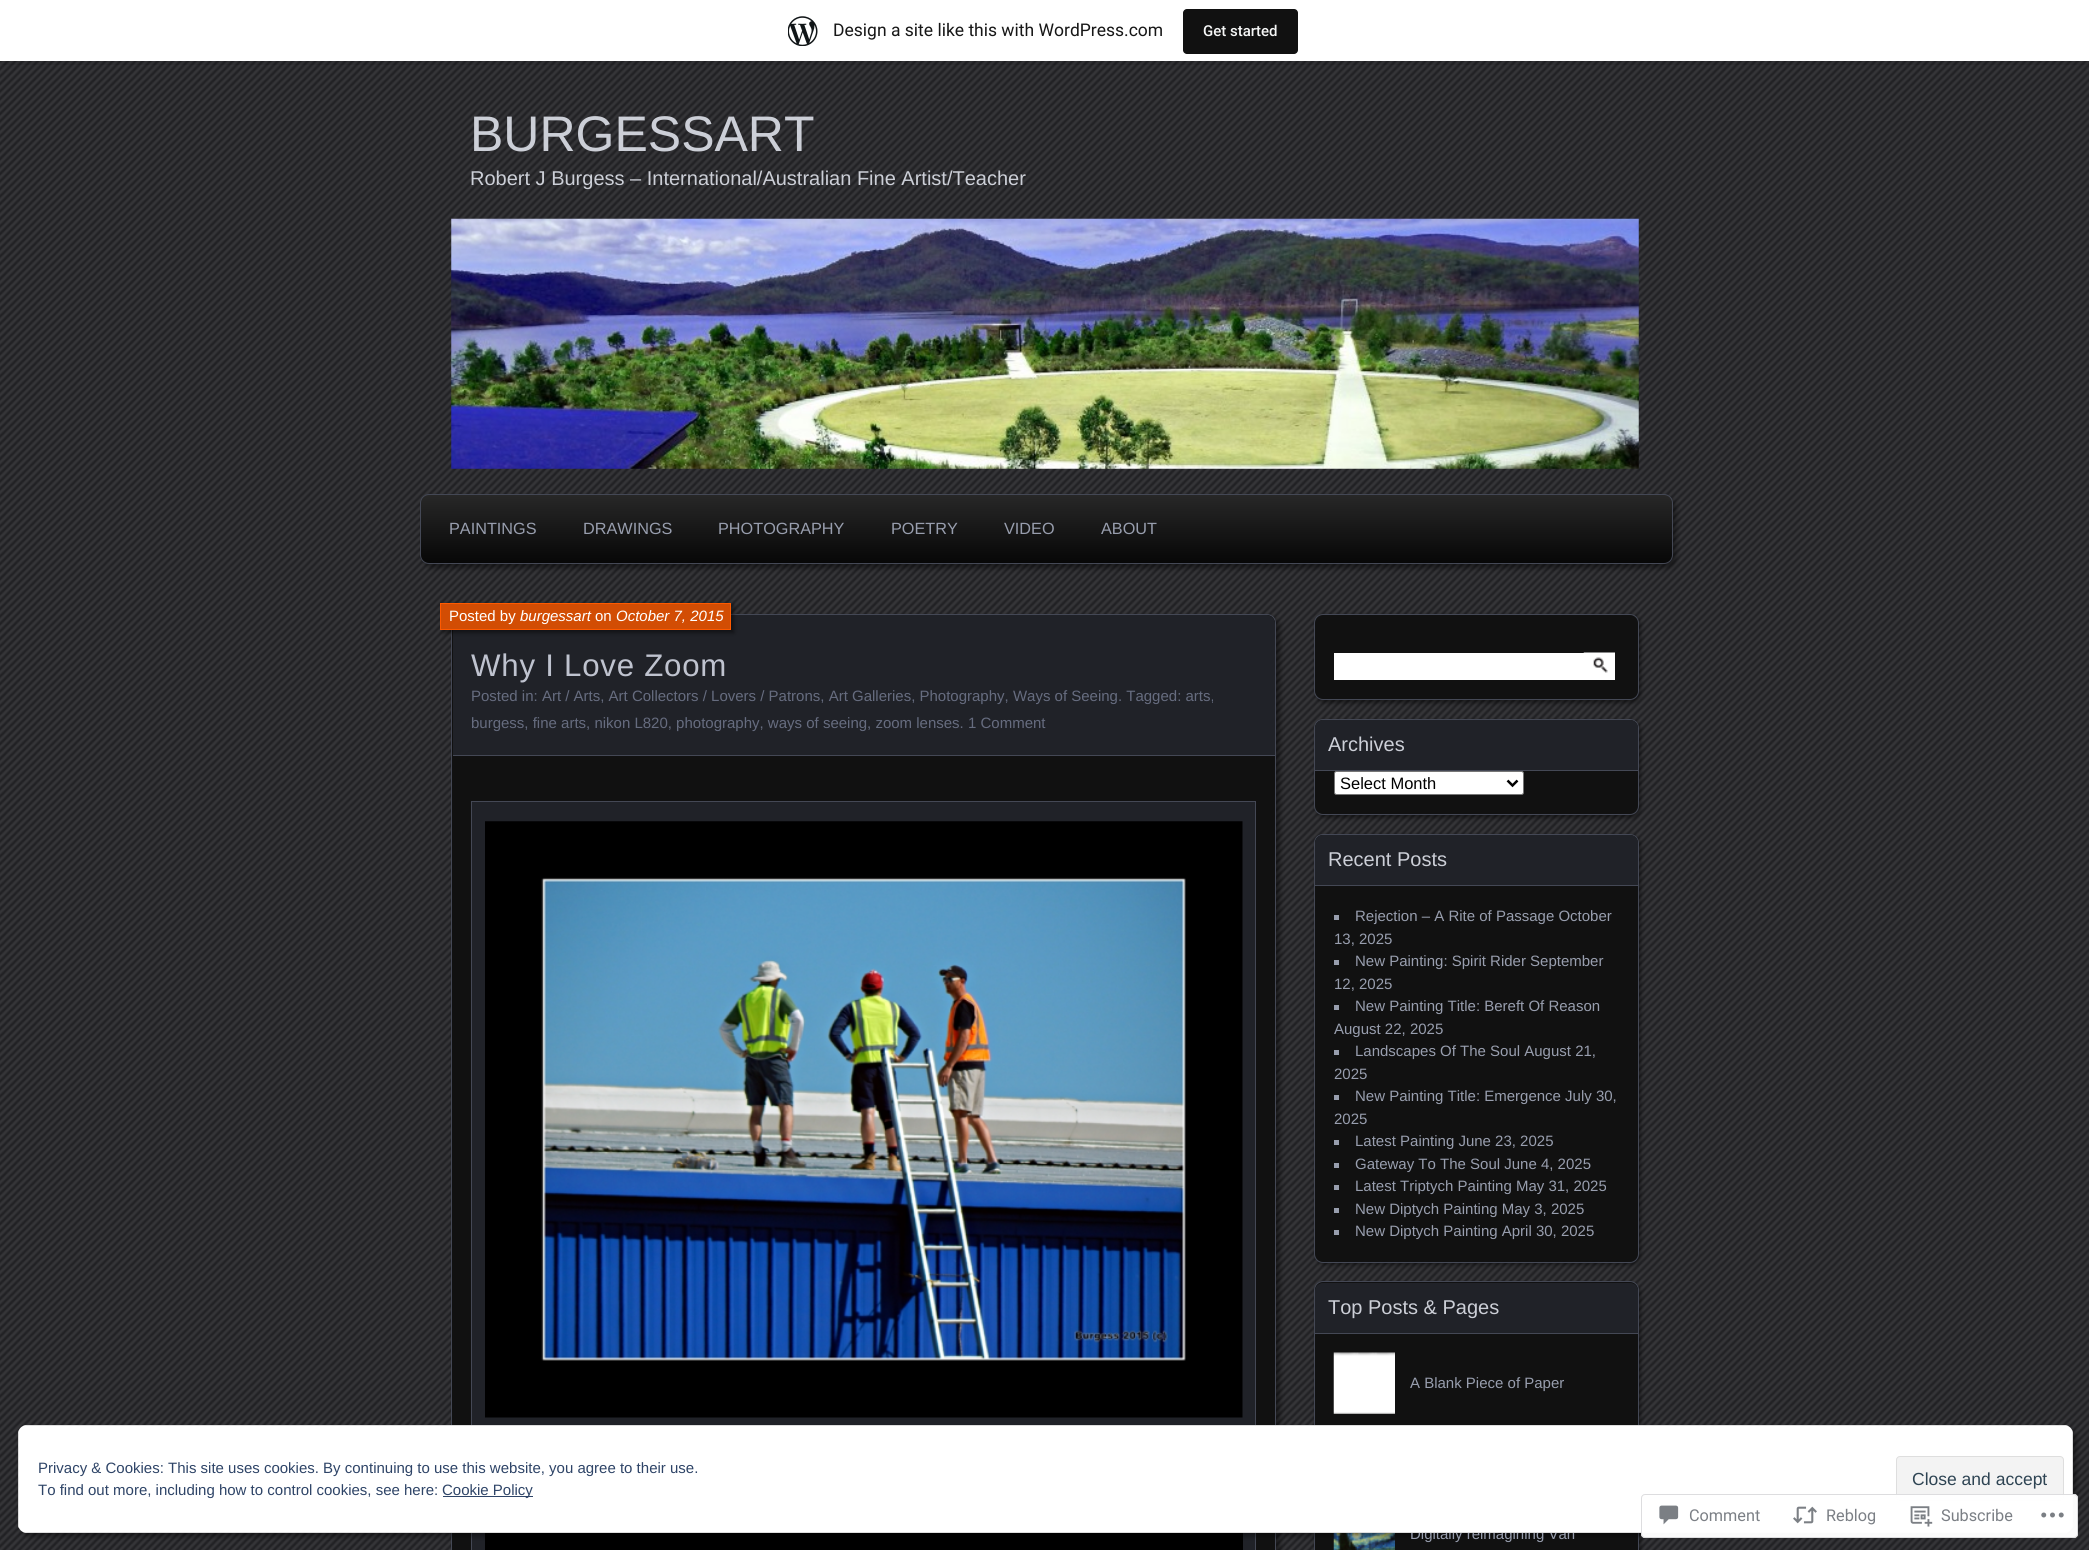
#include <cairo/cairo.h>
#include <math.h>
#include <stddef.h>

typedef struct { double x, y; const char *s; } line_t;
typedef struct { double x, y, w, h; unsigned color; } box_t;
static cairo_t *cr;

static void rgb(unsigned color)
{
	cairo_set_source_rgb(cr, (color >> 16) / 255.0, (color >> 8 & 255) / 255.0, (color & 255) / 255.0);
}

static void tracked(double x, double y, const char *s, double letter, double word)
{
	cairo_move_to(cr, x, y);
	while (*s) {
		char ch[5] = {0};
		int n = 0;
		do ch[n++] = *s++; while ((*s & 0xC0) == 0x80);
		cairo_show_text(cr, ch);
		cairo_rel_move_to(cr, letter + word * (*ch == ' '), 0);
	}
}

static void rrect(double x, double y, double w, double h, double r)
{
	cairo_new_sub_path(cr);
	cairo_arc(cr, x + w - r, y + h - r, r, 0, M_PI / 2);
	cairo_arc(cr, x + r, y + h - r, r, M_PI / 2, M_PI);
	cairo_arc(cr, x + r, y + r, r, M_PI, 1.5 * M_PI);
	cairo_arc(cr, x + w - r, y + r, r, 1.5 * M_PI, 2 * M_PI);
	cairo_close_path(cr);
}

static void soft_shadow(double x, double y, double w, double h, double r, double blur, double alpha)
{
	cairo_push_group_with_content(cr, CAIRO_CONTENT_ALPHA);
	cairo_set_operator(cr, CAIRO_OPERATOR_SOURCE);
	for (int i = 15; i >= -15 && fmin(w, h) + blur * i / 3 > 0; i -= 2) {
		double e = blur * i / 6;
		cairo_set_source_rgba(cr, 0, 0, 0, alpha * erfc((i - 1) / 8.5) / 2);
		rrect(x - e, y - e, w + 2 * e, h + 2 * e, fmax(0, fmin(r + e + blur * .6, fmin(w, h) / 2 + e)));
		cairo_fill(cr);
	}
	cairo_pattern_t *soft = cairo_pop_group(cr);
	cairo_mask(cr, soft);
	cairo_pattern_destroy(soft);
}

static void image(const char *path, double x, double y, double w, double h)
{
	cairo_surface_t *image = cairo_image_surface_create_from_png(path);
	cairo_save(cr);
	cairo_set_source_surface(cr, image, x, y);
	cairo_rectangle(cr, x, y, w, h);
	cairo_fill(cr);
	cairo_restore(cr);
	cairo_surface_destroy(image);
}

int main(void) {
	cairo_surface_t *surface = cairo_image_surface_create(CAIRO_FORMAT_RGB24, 2089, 1550);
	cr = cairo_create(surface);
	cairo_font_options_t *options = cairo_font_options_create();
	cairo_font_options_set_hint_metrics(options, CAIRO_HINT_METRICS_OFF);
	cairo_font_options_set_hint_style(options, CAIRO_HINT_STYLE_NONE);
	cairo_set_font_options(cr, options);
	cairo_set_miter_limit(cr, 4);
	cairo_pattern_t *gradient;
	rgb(0x202023);
	cairo_paint(cr);
	image("img/1.png", 0, 61, 2089, 1489);
	cairo_set_source_rgba(cr, 0, 0, 0, 0.08);
	cairo_new_path(cr);
	cairo_move_to(cr, 1, 61);
	cairo_line_to(cr, 1, 65);
	cairo_line_to(cr, 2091, 65);
	cairo_line_to(cr, 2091, 4);
	cairo_line_to(cr, 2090, 4);
	cairo_line_to(cr, 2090, 61);
	cairo_close_path(cr);
	cairo_fill(cr);
	rgb(0xffffff);
	cairo_rectangle(cr, 0, 0, 2089, 61);
	cairo_fill(cr);
	image("img/2.png", 788, 16, 30, 30);
	rgb(0x111111);
	rrect(1183, 9, 115, 45, 4);
	cairo_fill(cr);
	image("img/3.png", 451, 218, 1188, 251);
	rgb(0x000000);
	soft_shadow(424, 498, 1252, 70, 9, 2.5, 0.45);
	cairo_save(cr);
	rrect(420, 494, 1253, 70, 9);
	cairo_clip(cr);
	gradient = cairo_pattern_create_linear(1046, 495, 1046, 563);
	cairo_pattern_add_color_stop_rgba(gradient, 0.01, 0.153, 0.153, 0.153, 1);
	cairo_pattern_add_color_stop_rgba(gradient, 1, 0.027, 0.027, 0.027, 1);
	cairo_set_source(cr, gradient);
	cairo_pattern_destroy(gradient);
	cairo_rectangle(cr, 420, 495, 1253, 68);
	cairo_fill(cr);
	cairo_restore(cr);
	rrect(420.5, 494.5, 1252, 69, 8.5);
	rgb(0x444855);
	cairo_set_line_width(cr, 1);
	cairo_stroke(cr);
	rgb(0x000000);
	soft_shadow(455, 618, 825, 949, 9, 2.5, 0.45);
	rgb(0x111111);
	rrect(451.5, 614.5, 824, 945, 8.5);
	cairo_fill_preserve(cr);
	rgb(0x444855);
	cairo_stroke(cr);
	rgb(0x202228);
	cairo_new_path(cr);
	cairo_move_to(cr, 462, 615);
	cairo_line_to(cr, 1266, 615);
	cairo_curve_to(cr, 1271, 615, 1275, 619, 1275, 624);
	cairo_line_to(cr, 1275, 756);
	cairo_line_to(cr, 453, 756);
	cairo_line_to(cr, 453, 624);
	cairo_curve_to(cr, 453, 619, 457, 615, 462, 615);
	cairo_close_path(cr);
	cairo_fill(cr);
	rgb(0x444855);
	cairo_rectangle(cr, 453, 755, 822, 1);
	cairo_fill(cr);
	rgb(0x000000);
	soft_shadow(443, 605, 291, 28, 0, 2, 0.45);
	rgb(0xd24d04);
	cairo_rectangle(cr, 440.5, 603.5, 290, 26);
	cairo_fill_preserve(cr);
	rgb(0xff5a00);
	cairo_stroke(cr);
	rgb(0x202228);
	cairo_rectangle(cr, 472, 802, 783, 623);
	cairo_fill(cr);
	cairo_rectangle(cr, 471.5, 801.5, 784, 681);
	rgb(0x444855);
	cairo_stroke(cr);
	image("img/4.png", 485, 821, 758, 597);
	rgb(0x202228);
	cairo_rectangle(cr, 472, 1533, 783, 17);
	cairo_fill(cr);
	cairo_rectangle(cr, 471.5, 1509.5, 784, 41);
	rgb(0x444855);
	cairo_stroke(cr);
	rgb(0x000000);
	cairo_rectangle(cr, 485, 1533, 758, 17);
	cairo_fill(cr);
	rgb(0x000000);
	soft_shadow(1316, 616, 325, 87, 9, 2, 0.45);
	rgb(0x111111);
	rrect(1314.5, 614.5, 324, 85, 8.5);
	cairo_fill_preserve(cr);
	rgb(0x444855);
	cairo_stroke(cr);
	rgb(0xffffff);
	cairo_rectangle(cr, 1334, 653, 281, 27);
	cairo_fill(cr);
	image("img/5.png", 1583, 652, 32, 21);
	rgb(0x000000);
	soft_shadow(1316, 721, 325, 97, 9, 2, 0.45);
	rgb(0x111111);
	rrect(1314.5, 719.5, 324, 95, 8.5);
	cairo_fill_preserve(cr);
	rgb(0x444855);
	cairo_stroke(cr);
	rgb(0x202228);
	cairo_new_path(cr);
	cairo_move_to(cr, 1323, 720);
	cairo_line_to(cr, 1630, 720);
	cairo_curve_to(cr, 1634.5, 720, 1638, 723.5, 1638, 728);
	cairo_line_to(cr, 1638, 771);
	cairo_line_to(cr, 1315, 771);
	cairo_line_to(cr, 1315, 728);
	cairo_curve_to(cr, 1315, 723.5, 1318.5, 720, 1323, 720);
	cairo_close_path(cr);
	cairo_fill(cr);
	rgb(0x444855);
	cairo_rectangle(cr, 1315, 770, 323, 1);
	cairo_fill(cr);
	rgb(0xffffff);
	rrect(1334.5, 771.5, 189, 23, 2);
	cairo_fill_preserve(cr);
	rgb(0x767676);
	cairo_stroke(cr);
	cairo_new_path(cr);
	cairo_move_to(cr, 1507.5, 780.5);
	cairo_line_to(cr, 1512.5, 785.5);
	cairo_line_to(cr, 1517.5, 780.5);
	rgb(0x000000);
	cairo_set_line_width(cr, 2.5);
	cairo_stroke(cr);
	rgb(0x000000);
	soft_shadow(1316, 836, 325, 429, 9, 2, 0.45);
	rgb(0x111111);
	rrect(1314.5, 834.5, 324, 428, 8.5);
	cairo_fill_preserve(cr);
	rgb(0x444855);
	cairo_set_line_width(cr, 1);
	cairo_stroke(cr);
	rgb(0x202228);
	cairo_new_path(cr);
	cairo_move_to(cr, 1323, 835);
	cairo_line_to(cr, 1630, 835);
	cairo_curve_to(cr, 1634.5, 835, 1638, 838.5, 1638, 843);
	cairo_line_to(cr, 1638, 886);
	cairo_line_to(cr, 1315, 886);
	cairo_line_to(cr, 1315, 843);
	cairo_curve_to(cr, 1315, 838.5, 1318.5, 835, 1323, 835);
	cairo_close_path(cr);
	cairo_fill(cr);
	{
		static const box_t items[] = {
			{1315, 885, 323, 1, 0x444855},
			{1334, 915, 5, 5, 0x989eae},
			{1334, 960, 5, 5, 0x989eae},
			{1334, 1005, 5, 5, 0x989eae},
			{1334, 1050, 5, 5, 0x989eae},
			{1334, 1095, 5, 5, 0x989eae},
			{1334, 1140, 5, 5, 0x989eae},
			{1334, 1163, 5, 5, 0x989eae},
			{1334, 1185, 5, 5, 0x989eae},
			{1334, 1208, 5, 5, 0x989eae},
			{1334, 1230, 5, 5, 0x989eae},
		};
		for (size_t i = 0; i < sizeof items / sizeof *items; i++) {
			rgb(items[i].color);
			cairo_rectangle(cr, items[i].x, items[i].y, items[i].w, items[i].h);
			cairo_fill(cr);
		}
	}
	rgb(0x000000);
	soft_shadow(1316, 1284, 325, 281, 9, 2, 0.45);
	rgb(0x111111);
	rrect(1314.5, 1281.5, 324, 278, 8.5);
	cairo_fill_preserve(cr);
	rgb(0x444855);
	cairo_stroke(cr);
	rgb(0x202228);
	cairo_new_path(cr);
	cairo_move_to(cr, 1323, 1283);
	cairo_line_to(cr, 1630, 1283);
	cairo_curve_to(cr, 1634.5, 1283, 1638, 1286.5, 1638, 1291);
	cairo_line_to(cr, 1638, 1334);
	cairo_line_to(cr, 1315, 1334);
	cairo_line_to(cr, 1315, 1291);
	cairo_curve_to(cr, 1315, 1286.5, 1318.5, 1283, 1323, 1283);
	cairo_close_path(cr);
	cairo_fill(cr);
	rgb(0x444855);
	cairo_rectangle(cr, 1315, 1333, 323, 1);
	cairo_fill(cr);
	image("img/6.png", 1333, 1352, 62, 62);
	image("img/7.png", 1333, 1533, 62, 17);
	rgb(0x000000);
	soft_shadow(21, 1429, 2055, 107, 9, 2.5, 0.45);
	cairo_select_font_face(cr, "Roboto", CAIRO_FONT_SLANT_NORMAL, CAIRO_FONT_WEIGHT_NORMAL);
	cairo_set_font_size(cr, 17.5);
	rgb(0x171717);
	cairo_move_to(cr, 833, 36);
	cairo_show_text(cr, "Design a site like this with WordPress.com");
	cairo_select_font_face(cr, "Roboto Medium", CAIRO_FONT_SLANT_NORMAL, CAIRO_FONT_WEIGHT_NORMAL);
	cairo_set_font_size(cr, 15);
	rgb(0xf6f7f7);
	cairo_move_to(cr, 1203, 36);
	cairo_show_text(cr, "Get started");
	cairo_select_font_face(cr, "Liberation Sans", CAIRO_FONT_SLANT_NORMAL, CAIRO_FONT_WEIGHT_NORMAL);
	cairo_set_font_size(cr, 50);
	rgb(0xcccfd7);
	cairo_move_to(cr, 470, 151);
	cairo_show_text(cr, "BURGESSART");
	cairo_set_font_size(cr, 20);
	cairo_move_to(cr, 470, 185);
	cairo_show_text(cr, "Robert J Burgess – International/Australian Fine Artist/Teacher");
	cairo_set_font_size(cr, 16.25);
	rgb(0x989eae);
	{
		static const line_t items[] = {
			{449, 534, "PAINTINGS"},
			{583, 534, "DRAWINGS"},
			{718, 534, "PHOTOGRAPHY"},
			{891, 534, "POETRY"},
			{1004, 534, "VIDEO"},
			{1101, 534, "ABOUT"},
		};
		for (size_t i = 0; i < sizeof items / sizeof *items; i++) {
			cairo_move_to(cr, items[i].x, items[i].y);
			cairo_show_text(cr, items[i].s);
		}
	}
	cairo_set_font_size(cr, 15);
	rgb(0xffffff);
	cairo_move_to(cr, 449, 621);
	cairo_show_text(cr, "Posted by");
	cairo_select_font_face(cr, "Liberation Sans", CAIRO_FONT_SLANT_ITALIC, CAIRO_FONT_WEIGHT_NORMAL);
	cairo_move_to(cr, 520, 621);
	cairo_show_text(cr, "burgessart");
	cairo_select_font_face(cr, "Liberation Sans", CAIRO_FONT_SLANT_NORMAL, CAIRO_FONT_WEIGHT_NORMAL);
	cairo_move_to(cr, 595, 621);
	cairo_show_text(cr, "on");
	cairo_select_font_face(cr, "Liberation Sans", CAIRO_FONT_SLANT_ITALIC, CAIRO_FONT_WEIGHT_NORMAL);
	cairo_move_to(cr, 616, 621);
	cairo_show_text(cr, "October 7, 2015");
	cairo_select_font_face(cr, "Liberation Sans", CAIRO_FONT_SLANT_NORMAL, CAIRO_FONT_WEIGHT_NORMAL);
	cairo_set_font_size(cr, 31.25);
	rgb(0xbfc3cf);
	tracked(471, 676, "Why I Love Zoom", 0.75, 0);
	cairo_set_font_size(cr, 15);
	rgb(0x666c7f);
	cairo_move_to(cr, 471, 701);
	cairo_show_text(cr, "Posted in: Art / Arts, Art Collectors / Lovers / Patrons, Art Galleries, Photography, Ways of Seeing. Tagged: arts,");
	cairo_move_to(cr, 471, 728);
	cairo_show_text(cr, "burgess, fine arts, nikon L820, photography, ways of seeing, zoom lenses. 1 Comment");
	cairo_set_font_size(cr, 20);
	rgb(0xcccfd7);
	cairo_move_to(cr, 1328, 751);
	cairo_show_text(cr, "Archives");
	cairo_set_font_size(cr, 16.5);
	rgb(0x000000);
	cairo_move_to(cr, 1340, 789);
	cairo_show_text(cr, "Select Month");
	cairo_set_font_size(cr, 20);
	rgb(0xcccfd7);
	cairo_move_to(cr, 1328, 866);
	cairo_show_text(cr, "Recent Posts");
	cairo_set_font_size(cr, 15);
	rgb(0x989eae);
	{
		static const line_t items[] = {
			{1355, 921, "Rejection – A Rite of Passage October"},
			{1334, 944, "13, 2025"},
			{1355, 966, "New Painting: Spirit Rider September"},
			{1334, 989, "12, 2025"},
			{1355, 1011, "New Painting Title: Bereft Of Reason"},
			{1334, 1034, "August 22, 2025"},
			{1355, 1056, "Landscapes Of The Soul August 21,"},
			{1334, 1079, "2025"},
			{1355, 1101, "New Painting Title: Emergence July 30,"},
			{1334, 1124, "2025"},
			{1355, 1146, "Latest Painting June 23, 2025"},
			{1355, 1169, "Gateway To The Soul June 4, 2025"},
			{1355, 1191, "Latest Triptych Painting May 31, 2025"},
			{1355, 1214, "New Diptych Painting May 3, 2025"},
			{1355, 1236, "New Diptych Painting April 30, 2025"},
		};
		for (size_t i = 0; i < sizeof items / sizeof *items; i++) {
			cairo_move_to(cr, items[i].x, items[i].y);
			cairo_show_text(cr, items[i].s);
		}
	}
	cairo_set_font_size(cr, 20);
	rgb(0xcccfd7);
	cairo_move_to(cr, 1328, 1314);
	cairo_show_text(cr, "Top Posts & Pages");
	cairo_set_font_size(cr, 15);
	rgb(0x989eae);
	cairo_move_to(cr, 1410, 1388);
	cairo_show_text(cr, "A Blank Piece of Paper");
	cairo_move_to(cr, 1410, 1539);
	cairo_show_text(cr, "Digitally reimagining Van");
	rgb(0xffffff);
	rrect(18, 1425, 2055, 108, 9);
	cairo_fill(cr);
	rgb(0xdedede);
	cairo_set_fill_rule(cr, CAIRO_FILL_RULE_EVEN_ODD);
	cairo_new_path(cr);
	cairo_move_to(cr, 18, 1434);
	cairo_line_to(cr, 18, 1524);
	cairo_curve_to(cr, 18, 1525, 18, 1527, 19, 1528);
	cairo_line_to(cr, 19, 1430);
	cairo_close_path(cr);
	cairo_move_to(cr, 27, 1425);
	cairo_line_to(cr, 23, 1426);
	cairo_line_to(cr, 2068, 1426);
	cairo_line_to(cr, 2064, 1425);
	cairo_close_path(cr);
	cairo_move_to(cr, 2073, 1434);
	cairo_line_to(cr, 2072, 1430);
	cairo_line_to(cr, 2072, 1528);
	cairo_curve_to(cr, 2073, 1527, 2073, 1525, 2073, 1524);
	cairo_close_path(cr);
	cairo_move_to(cr, 2064, 1533);
	cairo_line_to(cr, 2068, 1532);
	cairo_line_to(cr, 23, 1532);
	cairo_line_to(cr, 27, 1533);
	cairo_close_path(cr);
	cairo_fill(cr);
	rgb(0x2e4467);
	cairo_move_to(cr, 38, 1473);
	cairo_show_text(cr, "Privacy & Cookies: This site uses cookies. By continuing to use this website, you agree to their use.");
	rgb(0xf3f3f3);
	rrect(1896.5, 1456.5, 167, 44, 3.5);
	cairo_fill_preserve(cr);
	rgb(0xdedede);
	cairo_stroke(cr);
	cairo_set_font_size(cr, 17.5);
	rgb(0x2e4453);
	cairo_move_to(cr, 1912, 1485);
	cairo_show_text(cr, "Close and accept");
	cairo_set_font_size(cr, 15);
	rgb(0x2e4467);
	cairo_move_to(cr, 38, 1495);
	cairo_show_text(cr, "To find out more, including how to control cookies, see here:");
	cairo_rectangle(cr, 443, 1496, 90, 1);
	cairo_fill(cr);
	cairo_move_to(cr, 442, 1495);
	cairo_show_text(cr, "Cookie Policy");
	cairo_set_source_rgba(cr, 1, 1, 1, 0.98);
	rrect(1641, 1494, 437, 44, 4);
	cairo_fill(cr);
	rrect(1641.5, 1494.5, 436, 43, 3.5);
	cairo_set_source_rgba(cr, 0.863, 0.863, 0.871, 0.98);
	cairo_stroke(cr);
	image("img/8.png", 1659, 1505, 20, 20);
	cairo_select_font_face(cr, "Roboto", CAIRO_FONT_SLANT_NORMAL, CAIRO_FONT_WEIGHT_NORMAL);
	cairo_set_font_size(cr, 16.25);
	rgb(0x7b7f85);
	cairo_move_to(cr, 1689, 1521);
	cairo_show_text(cr, "Comment");
	image("img/9.png", 1793, 1506, 24, 18);
	cairo_move_to(cr, 1826, 1521);
	cairo_show_text(cr, "Reblog");
	image("img/10.png", 1910, 1506, 23, 21);
	cairo_move_to(cr, 1941, 1521);
	cairo_show_text(cr, "Subscribe");
	image("img/11.png", 2041, 1512, 23, 6);
	cairo_surface_write_to_png(surface, "page.png");
	cairo_font_options_destroy(options);
	cairo_destroy(cr);
	cairo_surface_destroy(surface);
	return 0;
}
